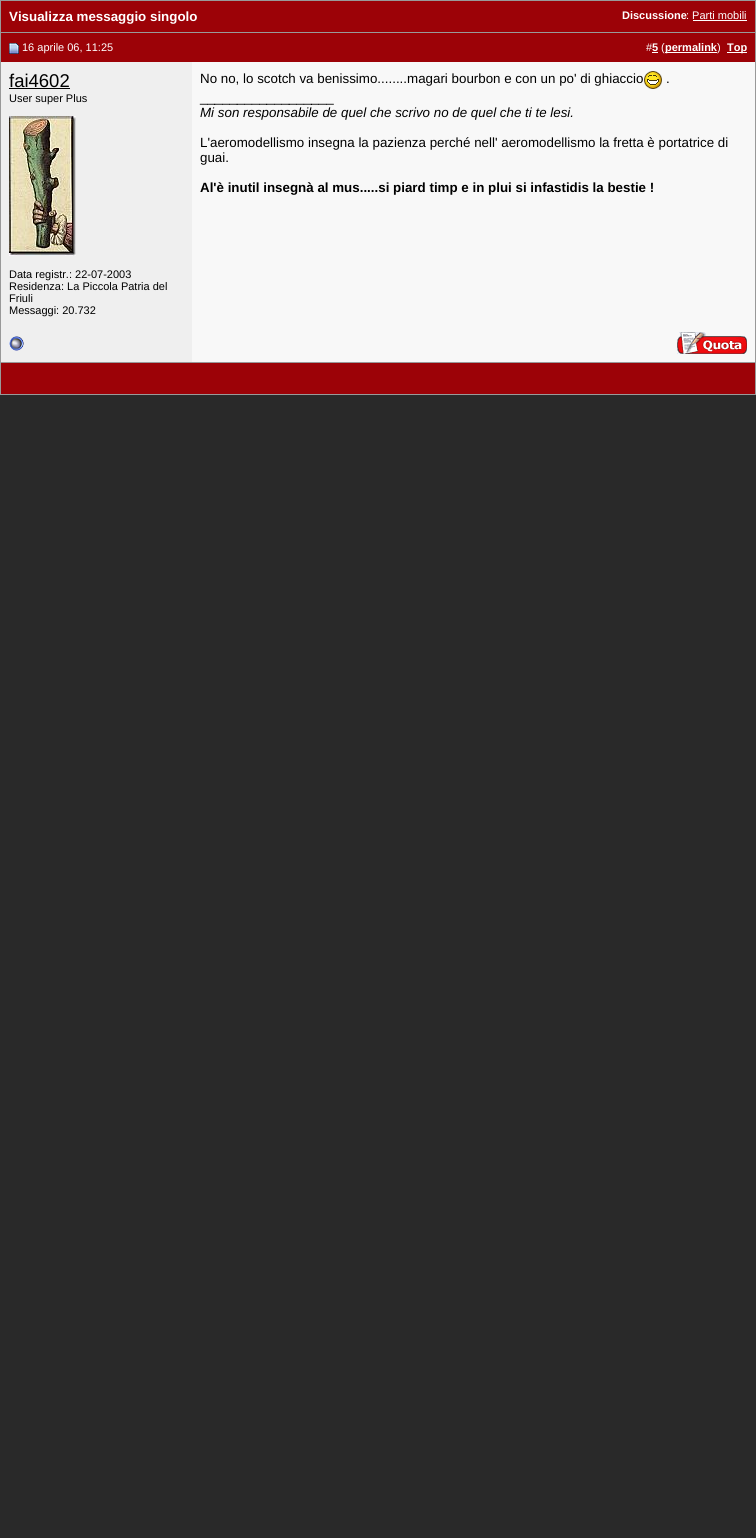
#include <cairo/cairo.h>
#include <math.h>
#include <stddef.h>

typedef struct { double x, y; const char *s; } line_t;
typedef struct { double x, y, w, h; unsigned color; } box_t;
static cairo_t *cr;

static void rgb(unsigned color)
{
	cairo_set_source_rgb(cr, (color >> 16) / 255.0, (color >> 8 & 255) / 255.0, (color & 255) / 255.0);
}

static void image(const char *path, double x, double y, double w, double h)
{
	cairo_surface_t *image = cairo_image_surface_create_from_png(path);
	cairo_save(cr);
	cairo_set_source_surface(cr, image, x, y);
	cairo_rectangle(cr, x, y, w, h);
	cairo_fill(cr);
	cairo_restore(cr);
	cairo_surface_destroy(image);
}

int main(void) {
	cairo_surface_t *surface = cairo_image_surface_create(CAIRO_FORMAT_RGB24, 756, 1538);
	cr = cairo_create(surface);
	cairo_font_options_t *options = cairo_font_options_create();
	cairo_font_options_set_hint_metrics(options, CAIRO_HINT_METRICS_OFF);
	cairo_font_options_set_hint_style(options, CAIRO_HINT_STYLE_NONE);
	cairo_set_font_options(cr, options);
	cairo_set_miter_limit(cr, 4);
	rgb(0x292929);
	cairo_paint(cr);
	{
		static const box_t items[] = {
			{0, 0, 756, 1, 0x999999},
			{755, 0, 1, 32, 0x999999},
			{0, 0, 1, 32, 0x999999},
			{1, 1, 754, 31, 0x9c0207},
			{693, 20, 54, 1, 0xffffff},
		};
		for (size_t i = 0; i < sizeof items / sizeof *items; i++) {
			rgb(items[i].color);
			cairo_rectangle(cr, items[i].x, items[i].y, items[i].w, items[i].h);
			cairo_fill(cr);
		}
	}
	cairo_rectangle(cr, 0.5, 32.5, 755, 330);
	rgb(0x999999);
	cairo_set_line_width(cr, 1);
	cairo_stroke(cr);
	rgb(0x9c0207);
	cairo_rectangle(cr, 1, 33, 754, 29);
	cairo_fill(cr);
	image("img/1.png", 9, 43, 10, 11);
	{
		static const box_t items[] = {
			{652, 52, 6, 1, 0xffffff},
			{665, 52, 52, 1, 0xffffff},
			{727, 52, 20, 1, 0xffffff},
			{1, 62, 191, 300, 0xefefef},
			{9, 88, 61, 1, 0x000000},
		};
		for (size_t i = 0; i < sizeof items / sizeof *items; i++) {
			rgb(items[i].color);
			cairo_rectangle(cr, items[i].x, items[i].y, items[i].w, items[i].h);
			cairo_fill(cr);
		}
	}
	image("img/2.png", 9, 116, 67, 140);
	rgb(0xf8f8f8);
	cairo_rectangle(cr, 192, 62, 563, 300);
	cairo_fill(cr);
	image("img/3.png", 644, 71, 18, 18);
	image("img/4.png", 9, 336, 15, 15);
	image("img/5.png", 677, 332, 70, 22);
	{
		static const box_t items[] = {
			{755, 363, 1, 32, 0x999999},
			{0, 394, 756, 1, 0x999999},
			{0, 363, 1, 32, 0x999999},
			{1, 363, 754, 31, 0x9c0207},
		};
		for (size_t i = 0; i < sizeof items / sizeof *items; i++) {
			rgb(items[i].color);
			cairo_rectangle(cr, items[i].x, items[i].y, items[i].w, items[i].h);
			cairo_fill(cr);
		}
	}
	cairo_select_font_face(cr, "Liberation Sans", CAIRO_FONT_SLANT_NORMAL, CAIRO_FONT_WEIGHT_BOLD);
	cairo_set_font_size(cr, 13.35);
	rgb(0xffffff);
	cairo_move_to(cr, 9, 21);
	cairo_show_text(cr, "Visualizza messaggio singolo");
	cairo_set_font_size(cr, 11);
	cairo_move_to(cr, 622, 19);
	cairo_show_text(cr, "Discussione");
	cairo_select_font_face(cr, "Liberation Sans", CAIRO_FONT_SLANT_NORMAL, CAIRO_FONT_WEIGHT_NORMAL);
	{
		static const line_t items[] = {
			{686, 19, ": Parti mobili"},
			{22, 51, "16 aprile 06, 11:25"},
			{646, 51, "#"},
		};
		for (size_t i = 0; i < sizeof items / sizeof *items; i++) {
			cairo_move_to(cr, items[i].x, items[i].y);
			cairo_show_text(cr, items[i].s);
		}
	}
	cairo_select_font_face(cr, "Liberation Sans", CAIRO_FONT_SLANT_NORMAL, CAIRO_FONT_WEIGHT_BOLD);
	cairo_move_to(cr, 652, 51);
	cairo_show_text(cr, "5");
	cairo_select_font_face(cr, "Liberation Sans", CAIRO_FONT_SLANT_NORMAL, CAIRO_FONT_WEIGHT_NORMAL);
	cairo_move_to(cr, 661, 51);
	cairo_show_text(cr, "(");
	cairo_select_font_face(cr, "Liberation Sans", CAIRO_FONT_SLANT_NORMAL, CAIRO_FONT_WEIGHT_BOLD);
	cairo_move_to(cr, 665, 51);
	cairo_show_text(cr, "permalink");
	cairo_select_font_face(cr, "Liberation Sans", CAIRO_FONT_SLANT_NORMAL, CAIRO_FONT_WEIGHT_NORMAL);
	cairo_move_to(cr, 717, 51);
	cairo_show_text(cr, ")");
	cairo_select_font_face(cr, "Liberation Sans", CAIRO_FONT_SLANT_NORMAL, CAIRO_FONT_WEIGHT_BOLD);
	cairo_move_to(cr, 727, 51);
	cairo_show_text(cr, "Top");
	cairo_select_font_face(cr, "Liberation Sans", CAIRO_FONT_SLANT_NORMAL, CAIRO_FONT_WEIGHT_NORMAL);
	cairo_set_font_size(cr, 18.5);
	rgb(0x000000);
	cairo_move_to(cr, 9, 87);
	cairo_show_text(cr, "fai4602");
	cairo_set_font_size(cr, 11);
	{
		static const line_t items[] = {
			{9, 102, "User super Plus"},
			{9, 278, "Data registr.: 22-07-2003"},
			{9, 290, "Residenza: La Piccola Patria del"},
			{9, 302, "Friuli"},
			{9, 314, "Messaggi: 20.732"},
		};
		for (size_t i = 0; i < sizeof items / sizeof *items; i++) {
			cairo_move_to(cr, items[i].x, items[i].y);
			cairo_show_text(cr, items[i].s);
		}
	}
	cairo_set_font_size(cr, 13.35);
	{
		static const line_t items[] = {
			{200, 83, "No no, lo scotch va benissimo........magari bourbon e con un po' di ghiaccio"},
			{666, 83, "."},
			{200, 102, "__________________"},
		};
		for (size_t i = 0; i < sizeof items / sizeof *items; i++) {
			cairo_move_to(cr, items[i].x, items[i].y);
			cairo_show_text(cr, items[i].s);
		}
	}
	cairo_select_font_face(cr, "Liberation Sans", CAIRO_FONT_SLANT_ITALIC, CAIRO_FONT_WEIGHT_NORMAL);
	cairo_move_to(cr, 200, 117);
	cairo_show_text(cr, "Mi son responsabile de quel che scrivo no de quel che ti te lesi.");
	cairo_select_font_face(cr, "Liberation Sans", CAIRO_FONT_SLANT_NORMAL, CAIRO_FONT_WEIGHT_NORMAL);
	cairo_move_to(cr, 200, 147);
	cairo_show_text(cr, "L'aeromodellismo insegna la pazienza perché nell' aeromodellismo la fretta è portatrice di");
	cairo_move_to(cr, 200, 162);
	cairo_show_text(cr, "guai.");
	cairo_select_font_face(cr, "Liberation Sans", CAIRO_FONT_SLANT_NORMAL, CAIRO_FONT_WEIGHT_BOLD);
	cairo_move_to(cr, 200, 192);
	cairo_show_text(cr, "Al'è inutil insegnà al mus.....si piard timp e in plui si infastidis la bestie !");
	cairo_surface_write_to_png(surface, "page.png");
	cairo_font_options_destroy(options);
	cairo_destroy(cr);
	cairo_surface_destroy(surface);
	return 0;
}
